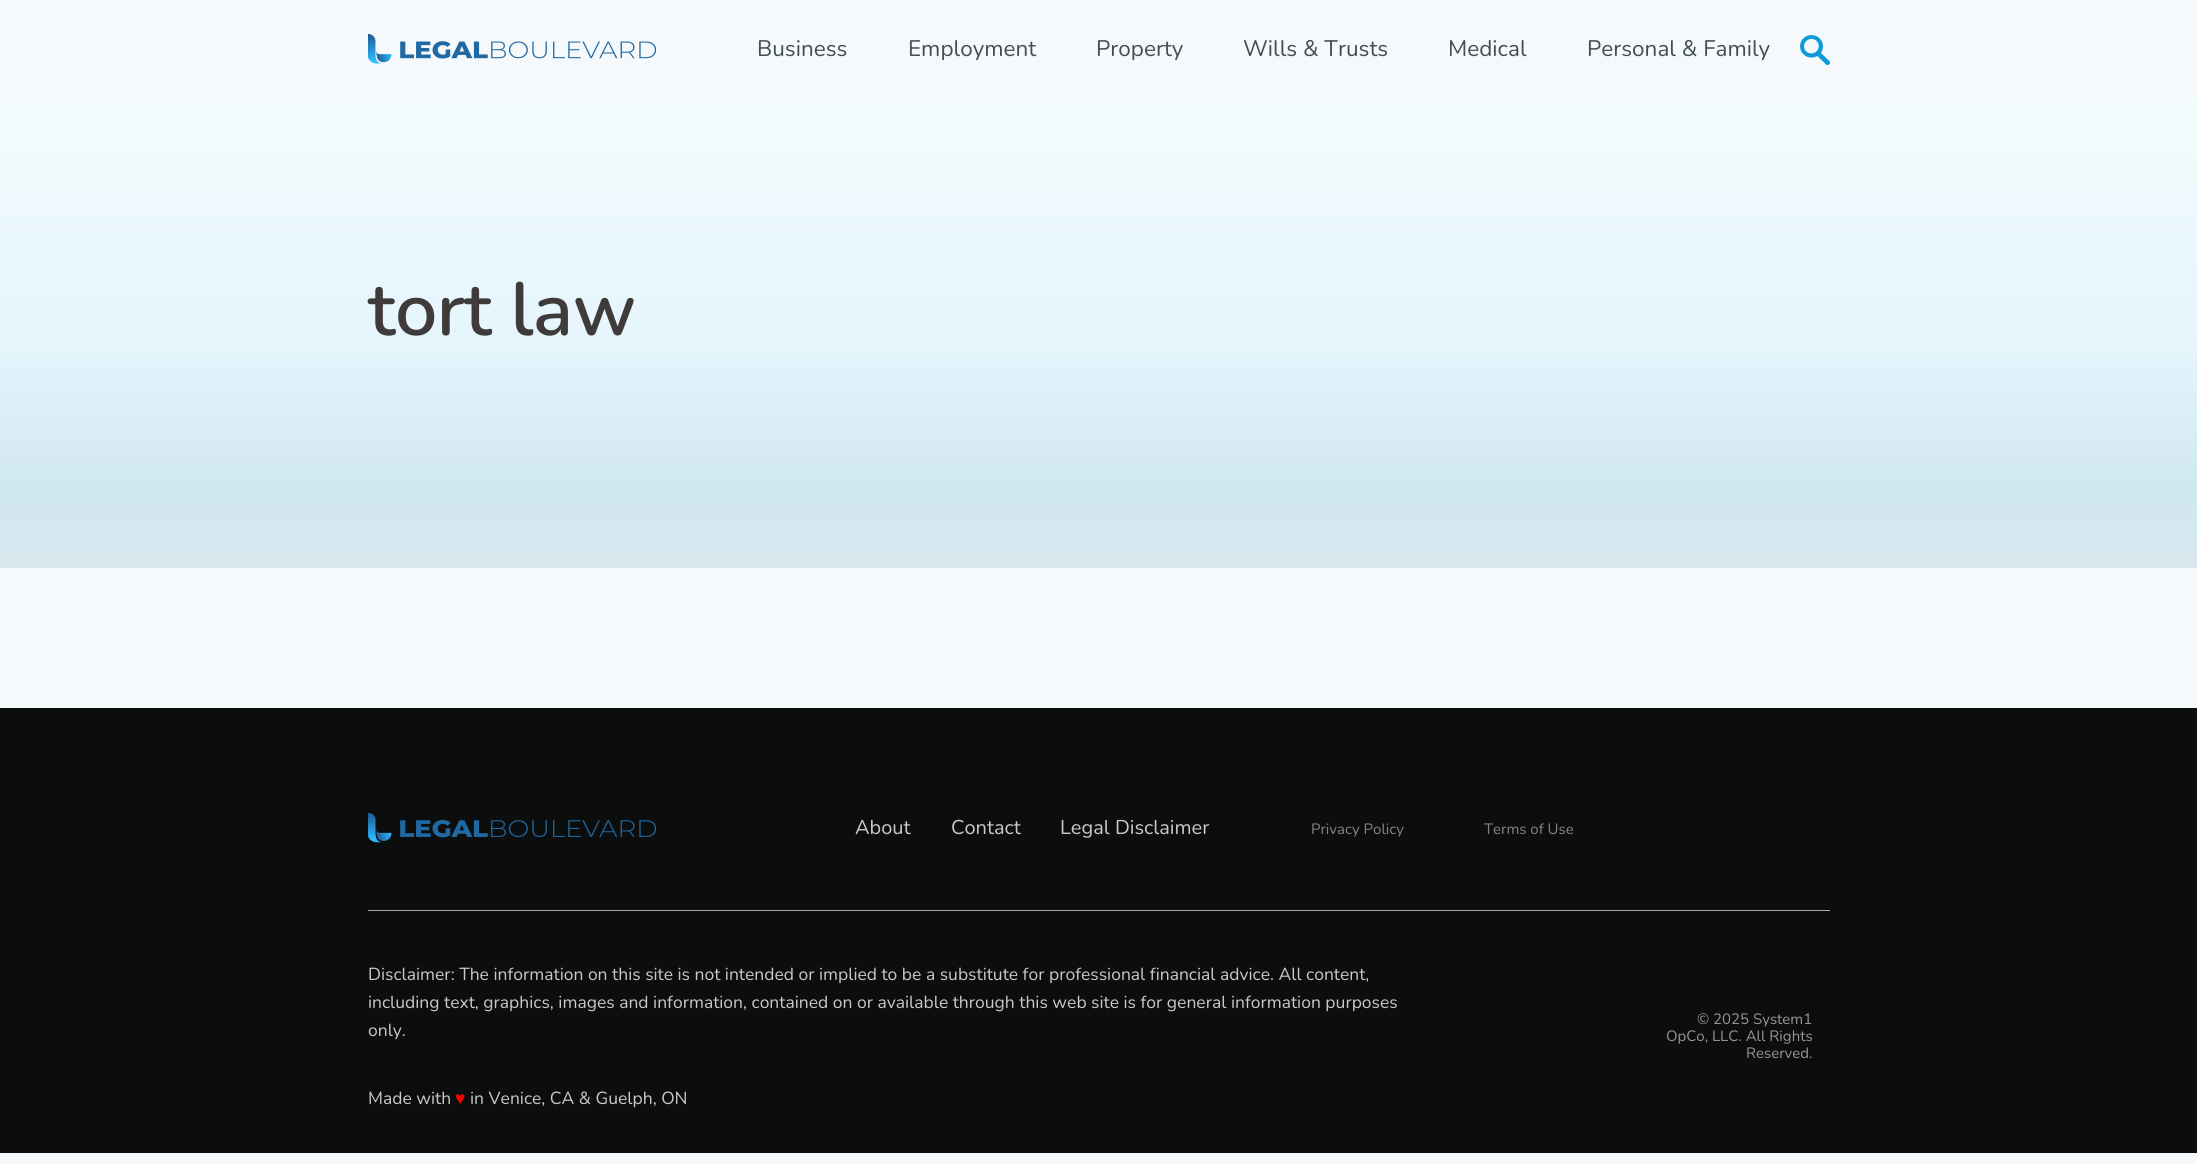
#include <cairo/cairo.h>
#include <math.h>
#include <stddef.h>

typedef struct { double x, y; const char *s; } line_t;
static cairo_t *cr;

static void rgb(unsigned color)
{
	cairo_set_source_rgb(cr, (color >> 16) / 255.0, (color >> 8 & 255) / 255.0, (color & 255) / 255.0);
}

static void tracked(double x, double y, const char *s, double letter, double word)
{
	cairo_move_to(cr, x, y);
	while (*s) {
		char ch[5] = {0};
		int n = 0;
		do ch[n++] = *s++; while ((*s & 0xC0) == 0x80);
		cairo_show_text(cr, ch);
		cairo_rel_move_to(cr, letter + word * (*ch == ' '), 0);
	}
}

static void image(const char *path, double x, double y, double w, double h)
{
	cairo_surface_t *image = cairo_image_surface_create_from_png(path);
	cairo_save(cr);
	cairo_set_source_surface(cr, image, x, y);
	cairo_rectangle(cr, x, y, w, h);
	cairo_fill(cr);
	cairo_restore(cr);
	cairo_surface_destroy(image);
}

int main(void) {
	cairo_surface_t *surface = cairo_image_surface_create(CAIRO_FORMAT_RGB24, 2197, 1164);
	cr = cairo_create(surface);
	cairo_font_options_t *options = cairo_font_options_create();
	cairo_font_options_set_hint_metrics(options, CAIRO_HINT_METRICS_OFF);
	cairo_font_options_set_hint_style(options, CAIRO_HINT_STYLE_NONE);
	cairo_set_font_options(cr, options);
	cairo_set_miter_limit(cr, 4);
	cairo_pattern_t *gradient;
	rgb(0xf6f9fb);
	cairo_paint(cr);
	image("img/1.png", 368, 34, 288, 30);
	image("img/2.png", 1800, 35, 30, 30);
	gradient = cairo_pattern_create_linear(1099, 97, 1099, 568);
	cairo_pattern_add_color_stop_rgba(gradient, 0, 0.957, 0.988, 0.992, 1);
	cairo_pattern_add_color_stop_rgba(gradient, 0.54, 0.894, 0.961, 0.988, 1);
	cairo_pattern_add_color_stop_rgba(gradient, 0.83, 0.816, 0.906, 0.945, 1);
	cairo_pattern_add_color_stop_rgba(gradient, 1, 0.843, 0.91, 0.933, 1);
	cairo_set_source(cr, gradient);
	cairo_pattern_destroy(gradient);
	cairo_rectangle(cr, 0, 98, 2197, 470);
	cairo_fill(cr);
	rgb(0x0c0e0e);
	cairo_rectangle(cr, 0, 708, 2197, 445);
	cairo_fill(cr);
	image("img/3.png", 368, 813, 288, 30);
	rgb(0xa6acac);
	cairo_rectangle(cr, 368, 910, 1462, 1);
	cairo_fill(cr);
	cairo_select_font_face(cr, "Nunito ExtraLight", CAIRO_FONT_SLANT_NORMAL, CAIRO_FONT_WEIGHT_NORMAL);
	cairo_set_font_size(cr, 22.5);
	rgb(0x414e55);
	{
		static const line_t items[] = {
			{757, 56, "Business"},
			{908, 56, "Employment"},
			{1096, 56, "Property"},
			{1243, 56, "Wills & Trusts"},
			{1448, 56, "Medical"},
			{1587, 56, "Personal & Family"},
		};
		for (size_t i = 0; i < sizeof items / sizeof *items; i++) {
			cairo_move_to(cr, items[i].x, items[i].y);
			cairo_show_text(cr, items[i].s);
		}
	}
	cairo_select_font_face(cr, "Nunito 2 ExtraLight", CAIRO_FONT_SLANT_NORMAL, CAIRO_FONT_WEIGHT_NORMAL);
	cairo_set_font_size(cr, 75);
	rgb(0x3f3b3a);
	tracked(368, 335, "tort law", -0.5, 0);
	cairo_select_font_face(cr, "Nunito ExtraLight", CAIRO_FONT_SLANT_NORMAL, CAIRO_FONT_WEIGHT_NORMAL);
	cairo_set_font_size(cr, 20);
	rgb(0xc9c9c9);
	{
		static const line_t items[] = {
			{855, 834, "About"},
			{951, 834, "Contact"},
			{1060, 834, "Legal Disclaimer"},
		};
		for (size_t i = 0; i < sizeof items / sizeof *items; i++) {
			cairo_move_to(cr, items[i].x, items[i].y);
			cairo_show_text(cr, items[i].s);
		}
	}
	cairo_set_font_size(cr, 15);
	rgb(0x848484);
	cairo_move_to(cr, 1311, 834);
	cairo_show_text(cr, "Privacy Policy");
	cairo_move_to(cr, 1484, 834);
	cairo_show_text(cr, "Terms of Use");
	cairo_set_font_size(cr, 17.5);
	rgb(0xc9c9c9);
	{
		static const line_t items[] = {
			{368, 980, "Disclaimer: The information on this site is not intended or implied to be a substitute for professional financial advice. All content,"},
			{368, 1008, "including text, graphics, images and information, contained on or available through this web site is for general information purposes"},
			{368, 1036, "only."},
			{368, 1104, "Made with"},
		};
		for (size_t i = 0; i < sizeof items / sizeof *items; i++) {
			cairo_move_to(cr, items[i].x, items[i].y);
			cairo_show_text(cr, items[i].s);
		}
	}
	cairo_select_font_face(cr, "Liberation Sans", CAIRO_FONT_SLANT_NORMAL, CAIRO_FONT_WEIGHT_NORMAL);
	rgb(0xff0000);
	cairo_move_to(cr, 455, 1104);
	cairo_show_text(cr, "♥");
	cairo_select_font_face(cr, "Nunito ExtraLight", CAIRO_FONT_SLANT_NORMAL, CAIRO_FONT_WEIGHT_NORMAL);
	rgb(0xc9c9c9);
	cairo_move_to(cr, 470, 1104);
	cairo_show_text(cr, "in Venice, CA & Guelph, ON");
	cairo_set_font_size(cr, 15);
	rgb(0x959595);
	{
		static const line_t items[] = {
			{1697, 1024, "© 2025 System1"},
			{1666, 1041, "OpCo, LLC. All Rights"},
			{1746, 1058, "Reserved."},
		};
		for (size_t i = 0; i < sizeof items / sizeof *items; i++) {
			cairo_move_to(cr, items[i].x, items[i].y);
			cairo_show_text(cr, items[i].s);
		}
	}
	cairo_surface_write_to_png(surface, "page.png");
	cairo_font_options_destroy(options);
	cairo_destroy(cr);
	cairo_surface_destroy(surface);
	return 0;
}
